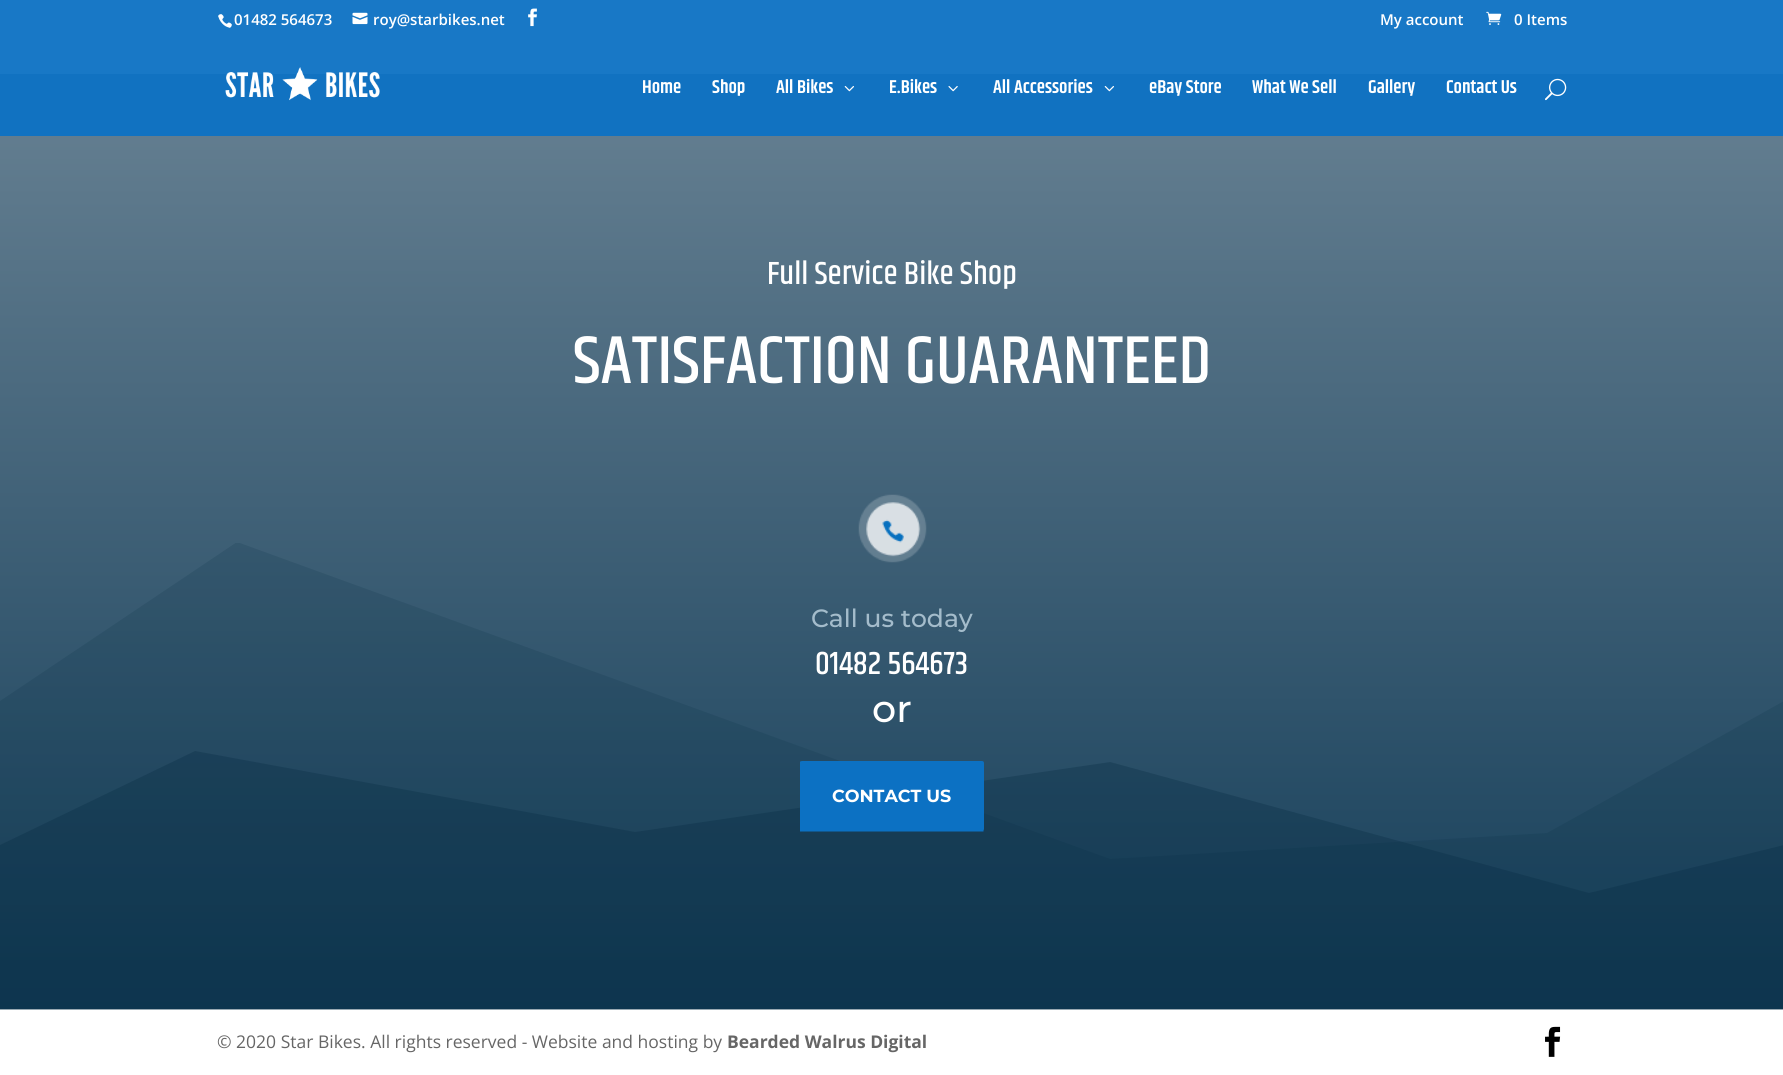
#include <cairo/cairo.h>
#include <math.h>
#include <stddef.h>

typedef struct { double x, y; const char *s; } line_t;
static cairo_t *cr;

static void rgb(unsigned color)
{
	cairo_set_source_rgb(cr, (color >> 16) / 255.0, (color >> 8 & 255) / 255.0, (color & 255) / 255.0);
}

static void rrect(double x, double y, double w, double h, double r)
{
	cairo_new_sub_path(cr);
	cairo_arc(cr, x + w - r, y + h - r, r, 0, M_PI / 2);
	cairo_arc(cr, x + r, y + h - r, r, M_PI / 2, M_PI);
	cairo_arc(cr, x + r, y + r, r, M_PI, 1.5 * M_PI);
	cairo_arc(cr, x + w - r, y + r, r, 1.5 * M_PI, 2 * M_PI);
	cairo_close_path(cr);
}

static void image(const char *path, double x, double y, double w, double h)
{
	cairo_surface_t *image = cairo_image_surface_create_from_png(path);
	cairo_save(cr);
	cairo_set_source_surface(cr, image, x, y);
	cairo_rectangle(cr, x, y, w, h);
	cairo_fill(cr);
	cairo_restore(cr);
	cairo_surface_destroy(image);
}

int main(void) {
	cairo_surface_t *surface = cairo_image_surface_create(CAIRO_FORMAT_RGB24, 1783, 1075);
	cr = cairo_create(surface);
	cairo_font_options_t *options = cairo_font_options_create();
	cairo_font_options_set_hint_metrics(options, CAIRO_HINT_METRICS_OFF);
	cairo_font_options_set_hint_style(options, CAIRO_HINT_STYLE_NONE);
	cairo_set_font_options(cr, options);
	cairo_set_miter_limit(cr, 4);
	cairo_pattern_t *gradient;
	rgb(0xffffff);
	cairo_paint(cr);
	rgb(0x1878c6);
	cairo_rectangle(cr, 0, 0, 1783, 74);
	cairo_fill(cr);
	image("img/1.png", 218, 14, 14, 14);
	image("img/2.png", 352, 12, 16, 13);
	image("img/3.png", 528, 8, 9, 19);
	image("img/4.png", 1486, 11, 16, 14);
	gradient = cairo_pattern_create_linear(892, 74, 892, 1009);
	cairo_pattern_add_color_stop_rgba(gradient, 0, 0.067, 0.447, 0.757, 1);
	cairo_pattern_add_color_stop_rgba(gradient, 1, 0.047, 0.431, 0.745, 1);
	cairo_set_source(cr, gradient);
	cairo_pattern_destroy(gradient);
	cairo_rectangle(cr, 0, 74, 1783, 62);
	cairo_fill(cr);
	image("img/5.png", 225, 67, 155, 34);
	image("img/6.png", 844, 86, 10, 6);
	image("img/7.png", 948, 86, 10, 6);
	image("img/6.png", 1104, 86, 10, 6);
	image("img/8.png", 1545, 78, 22, 23);
	gradient = cairo_pattern_create_linear(892, 74, 892, 1009);
	cairo_pattern_add_color_stop_rgba(gradient, 0, 0.404, 0.506, 0.576, 1);
	cairo_pattern_add_color_stop_rgba(gradient, 1, 0.078, 0.239, 0.345, 1);
	cairo_set_source(cr, gradient);
	cairo_pattern_destroy(gradient);
	cairo_rectangle(cr, 0, 136, 1783, 873);
	cairo_fill(cr);
	cairo_save(cr);
	cairo_rectangle(cr, 0, 543, 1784, 467);
	cairo_clip(cr);
	cairo_set_source_rgba(cr, 0.02, 0.161, 0.259, 0.15);
	cairo_new_path(cr);
	cairo_move_to(cr, 0, 701);
	cairo_line_to(cr, 237, 542);
	cairo_line_to(cr, 1110, 859);
	cairo_line_to(cr, 1547, 833);
	cairo_line_to(cr, 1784, 701);
	cairo_line_to(cr, 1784, 1010);
	cairo_line_to(cr, 0, 1010);
	cairo_close_path(cr);
	cairo_fill(cr);
	cairo_restore(cr);
	cairo_set_source_rgba(cr, 0.02, 0.161, 0.259, 0.3);
	cairo_new_path(cr);
	cairo_move_to(cr, 0, 845);
	cairo_line_to(cr, 195, 751);
	cairo_line_to(cr, 635, 832);
	cairo_line_to(cr, 1110, 762);
	cairo_line_to(cr, 1589, 893);
	cairo_line_to(cr, 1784, 845);
	cairo_line_to(cr, 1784, 1010);
	cairo_line_to(cr, 0, 1010);
	cairo_close_path(cr);
	cairo_fill(cr);
	image("img/9.png", 858, 494, 69, 69);
	rgb(0x0c71c3);
	rrect(800, 761, 184, 70, 2.5);
	cairo_fill(cr);
	cairo_new_path(cr);
	cairo_move_to(cr, 807.5, 769);
	cairo_line_to(cr, 976, 769);
	cairo_line_to(cr, 976, 824);
	cairo_line_to(cr, 807.5, 824);
	cairo_close_path(cr);
	cairo_set_line_width(cr, 15);
	cairo_stroke(cr);
	image("img/10.png", 1545, 1026, 16, 31);
	cairo_select_font_face(cr, "Open Sans SemiBold", CAIRO_FONT_SLANT_NORMAL, CAIRO_FONT_WEIGHT_NORMAL);
	cairo_set_font_size(cr, 15);
	rgb(0xffffff);
	{
		static const line_t items[] = {
			{234, 25, "01482 564673"},
			{373, 25, "roy@starbikes.net"},
			{1380, 25, "My account"},
			{1514, 25, "0 Items"},
		};
		for (size_t i = 0; i < sizeof items / sizeof *items; i++) {
			cairo_move_to(cr, items[i].x, items[i].y);
			cairo_show_text(cr, items[i].s);
		}
	}
	cairo_select_font_face(cr, "Khand SemiBold", CAIRO_FONT_SLANT_NORMAL, CAIRO_FONT_WEIGHT_NORMAL);
	cairo_set_font_size(cr, 18.75);
	{
		static const line_t items[] = {
			{642, 93, "Home"},
			{712, 93, "Shop"},
			{776, 93, "All Bikes"},
			{889, 93, "E.Bikes"},
			{993, 93, "All Accessories"},
			{1149, 93, "eBay Store"},
			{1252, 93, "What We Sell"},
			{1368, 93, "Gallery"},
			{1446, 93, "Contact Us"},
		};
		for (size_t i = 0; i < sizeof items / sizeof *items; i++) {
			cairo_move_to(cr, items[i].x, items[i].y);
			cairo_show_text(cr, items[i].s);
		}
	}
	cairo_select_font_face(cr, "Khand Medium", CAIRO_FONT_SLANT_NORMAL, CAIRO_FONT_WEIGHT_NORMAL);
	cairo_set_font_size(cr, 32.5);
	cairo_move_to(cr, 767, 284);
	cairo_show_text(cr, "Full Service Bike Shop");
	cairo_set_font_size(cr, 68.75);
	cairo_move_to(cr, 573, 383);
	cairo_show_text(cr, "SATISFACTION GUARANTEED");
	cairo_select_font_face(cr, "Montserrat Medium", CAIRO_FONT_SLANT_NORMAL, CAIRO_FONT_WEIGHT_NORMAL);
	cairo_set_font_size(cr, 25);
	rgb(0xa4bccb);
	cairo_move_to(cr, 811, 627);
	cairo_show_text(cr, "Call us today");
	cairo_select_font_face(cr, "Khand Medium", CAIRO_FONT_SLANT_NORMAL, CAIRO_FONT_WEIGHT_NORMAL);
	cairo_set_font_size(cr, 32.5);
	rgb(0xffffff);
	cairo_move_to(cr, 815, 674);
	cairo_show_text(cr, "01482 564673");
	cairo_select_font_face(cr, "Montserrat Medium", CAIRO_FONT_SLANT_NORMAL, CAIRO_FONT_WEIGHT_NORMAL);
	cairo_set_font_size(cr, 38);
	cairo_move_to(cr, 872, 722);
	cairo_show_text(cr, "or");
	cairo_select_font_face(cr, "Montserrat", CAIRO_FONT_SLANT_NORMAL, CAIRO_FONT_WEIGHT_BOLD);
	cairo_set_font_size(cr, 17.5);
	cairo_move_to(cr, 832, 802);
	cairo_show_text(cr, "CONTACT US");
	cairo_select_font_face(cr, "Open Sans", CAIRO_FONT_SLANT_NORMAL, CAIRO_FONT_WEIGHT_NORMAL);
	rgb(0x666666);
	cairo_move_to(cr, 217, 1048);
	cairo_show_text(cr, "© 2020 Star Bikes. All rights reserved - Website and hosting by");
	cairo_select_font_face(cr, "Open Sans", CAIRO_FONT_SLANT_NORMAL, CAIRO_FONT_WEIGHT_BOLD);
	cairo_move_to(cr, 727, 1048);
	cairo_show_text(cr, "Bearded Walrus Digital");
	cairo_surface_write_to_png(surface, "page.png");
	cairo_font_options_destroy(options);
	cairo_destroy(cr);
	cairo_surface_destroy(surface);
	return 0;
}
